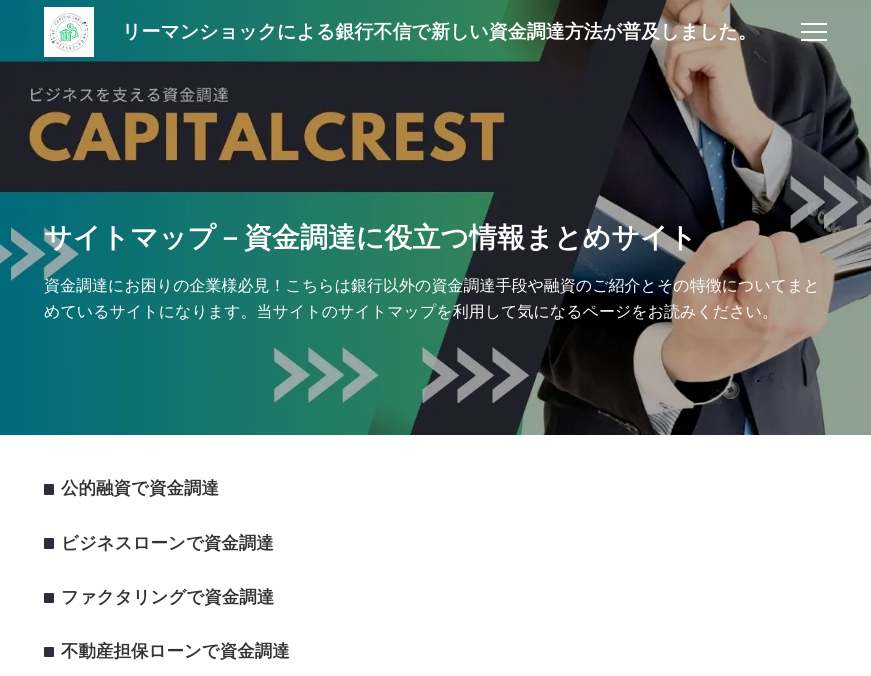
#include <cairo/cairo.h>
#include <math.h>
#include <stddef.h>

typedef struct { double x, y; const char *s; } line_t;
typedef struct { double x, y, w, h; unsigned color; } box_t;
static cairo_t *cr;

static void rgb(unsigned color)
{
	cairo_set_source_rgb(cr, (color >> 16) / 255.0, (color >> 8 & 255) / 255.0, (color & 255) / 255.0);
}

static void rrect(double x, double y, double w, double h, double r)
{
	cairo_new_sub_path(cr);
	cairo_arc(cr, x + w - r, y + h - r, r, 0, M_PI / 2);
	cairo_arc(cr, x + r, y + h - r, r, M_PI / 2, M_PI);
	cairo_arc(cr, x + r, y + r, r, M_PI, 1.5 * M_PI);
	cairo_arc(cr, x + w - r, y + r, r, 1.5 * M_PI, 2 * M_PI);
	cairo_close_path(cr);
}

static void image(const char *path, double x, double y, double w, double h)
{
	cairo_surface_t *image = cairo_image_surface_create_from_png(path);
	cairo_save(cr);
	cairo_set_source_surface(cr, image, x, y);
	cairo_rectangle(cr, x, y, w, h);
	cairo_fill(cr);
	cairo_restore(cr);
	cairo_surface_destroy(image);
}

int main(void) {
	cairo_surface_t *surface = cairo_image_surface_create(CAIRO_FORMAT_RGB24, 871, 676);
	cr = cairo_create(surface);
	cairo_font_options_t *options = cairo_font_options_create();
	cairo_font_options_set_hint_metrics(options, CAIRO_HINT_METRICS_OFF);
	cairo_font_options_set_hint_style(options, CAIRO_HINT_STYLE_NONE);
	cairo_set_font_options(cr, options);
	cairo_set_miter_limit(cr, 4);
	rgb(0xffffff);
	cairo_paint(cr);
	image("img/2.png", 0, 0, 871, 435);
	image("img/1.png", 44, 7, 50, 50);
	{
		static const box_t items[] = {
			{801, 23, 26, 2, 0xffffff},
			{801, 31, 26, 2, 0xffffff},
			{801, 39, 26, 2, 0xffffff},
		};
		for (size_t i = 0; i < sizeof items / sizeof *items; i++) {
			rgb(items[i].color);
			cairo_rectangle(cr, items[i].x, items[i].y, items[i].w, items[i].h);
			cairo_fill(cr);
		}
	}
	rgb(0x2d2d3b);
	rrect(44, 484, 10, 11, 1);
	cairo_fill(cr);
	rrect(44, 538, 10, 11, 1);
	cairo_fill(cr);
	rrect(44, 593, 10, 10, 1);
	cairo_fill(cr);
	rrect(44, 647, 10, 10, 1);
	cairo_fill(cr);
	cairo_select_font_face(cr, "WenQuanYi Zen Hei", CAIRO_FONT_SLANT_NORMAL, CAIRO_FONT_WEIGHT_BOLD);
	cairo_set_font_size(cr, 19);
	rgb(0xffffff);
	cairo_move_to(cr, 122, 38);
	cairo_show_text(cr, "リーマンショックによる銀行不信で新しい資金調達方法が普及しました。");
	cairo_set_font_size(cr, 28);
	cairo_move_to(cr, 44, 247);
	cairo_show_text(cr, "サイトマップ－資金調達に役立つ情報まとめサイト");
	cairo_select_font_face(cr, "WenQuanYi Zen Hei Medium", CAIRO_FONT_SLANT_NORMAL, CAIRO_FONT_WEIGHT_NORMAL);
	cairo_set_font_size(cr, 16);
	cairo_move_to(cr, 44, 291);
	cairo_show_text(cr, "資金調達にお困りの企業様必見！こちらは銀行以外の資金調達手段や融資のご紹介とその特徴についてまと");
	cairo_move_to(cr, 44, 317);
	cairo_show_text(cr, "めているサイトになります。当サイトのサイトマップを利用して気になるページをお読みください。");
	cairo_select_font_face(cr, "WenQuanYi Zen Hei", CAIRO_FONT_SLANT_NORMAL, CAIRO_FONT_WEIGHT_BOLD);
	cairo_set_font_size(cr, 17.5);
	rgb(0x333333);
	{
		static const line_t items[] = {
			{61, 494, "公的融資で資金調達"},
			{61, 549, "ビジネスローンで資金調達"},
			{61, 603, "ファクタリングで資金調達"},
			{61, 657, "不動産担保ローンで資金調達"},
		};
		for (size_t i = 0; i < sizeof items / sizeof *items; i++) {
			cairo_move_to(cr, items[i].x, items[i].y);
			cairo_show_text(cr, items[i].s);
		}
	}
	cairo_surface_write_to_png(surface, "page.png");
	cairo_font_options_destroy(options);
	cairo_destroy(cr);
	cairo_surface_destroy(surface);
	return 0;
}
